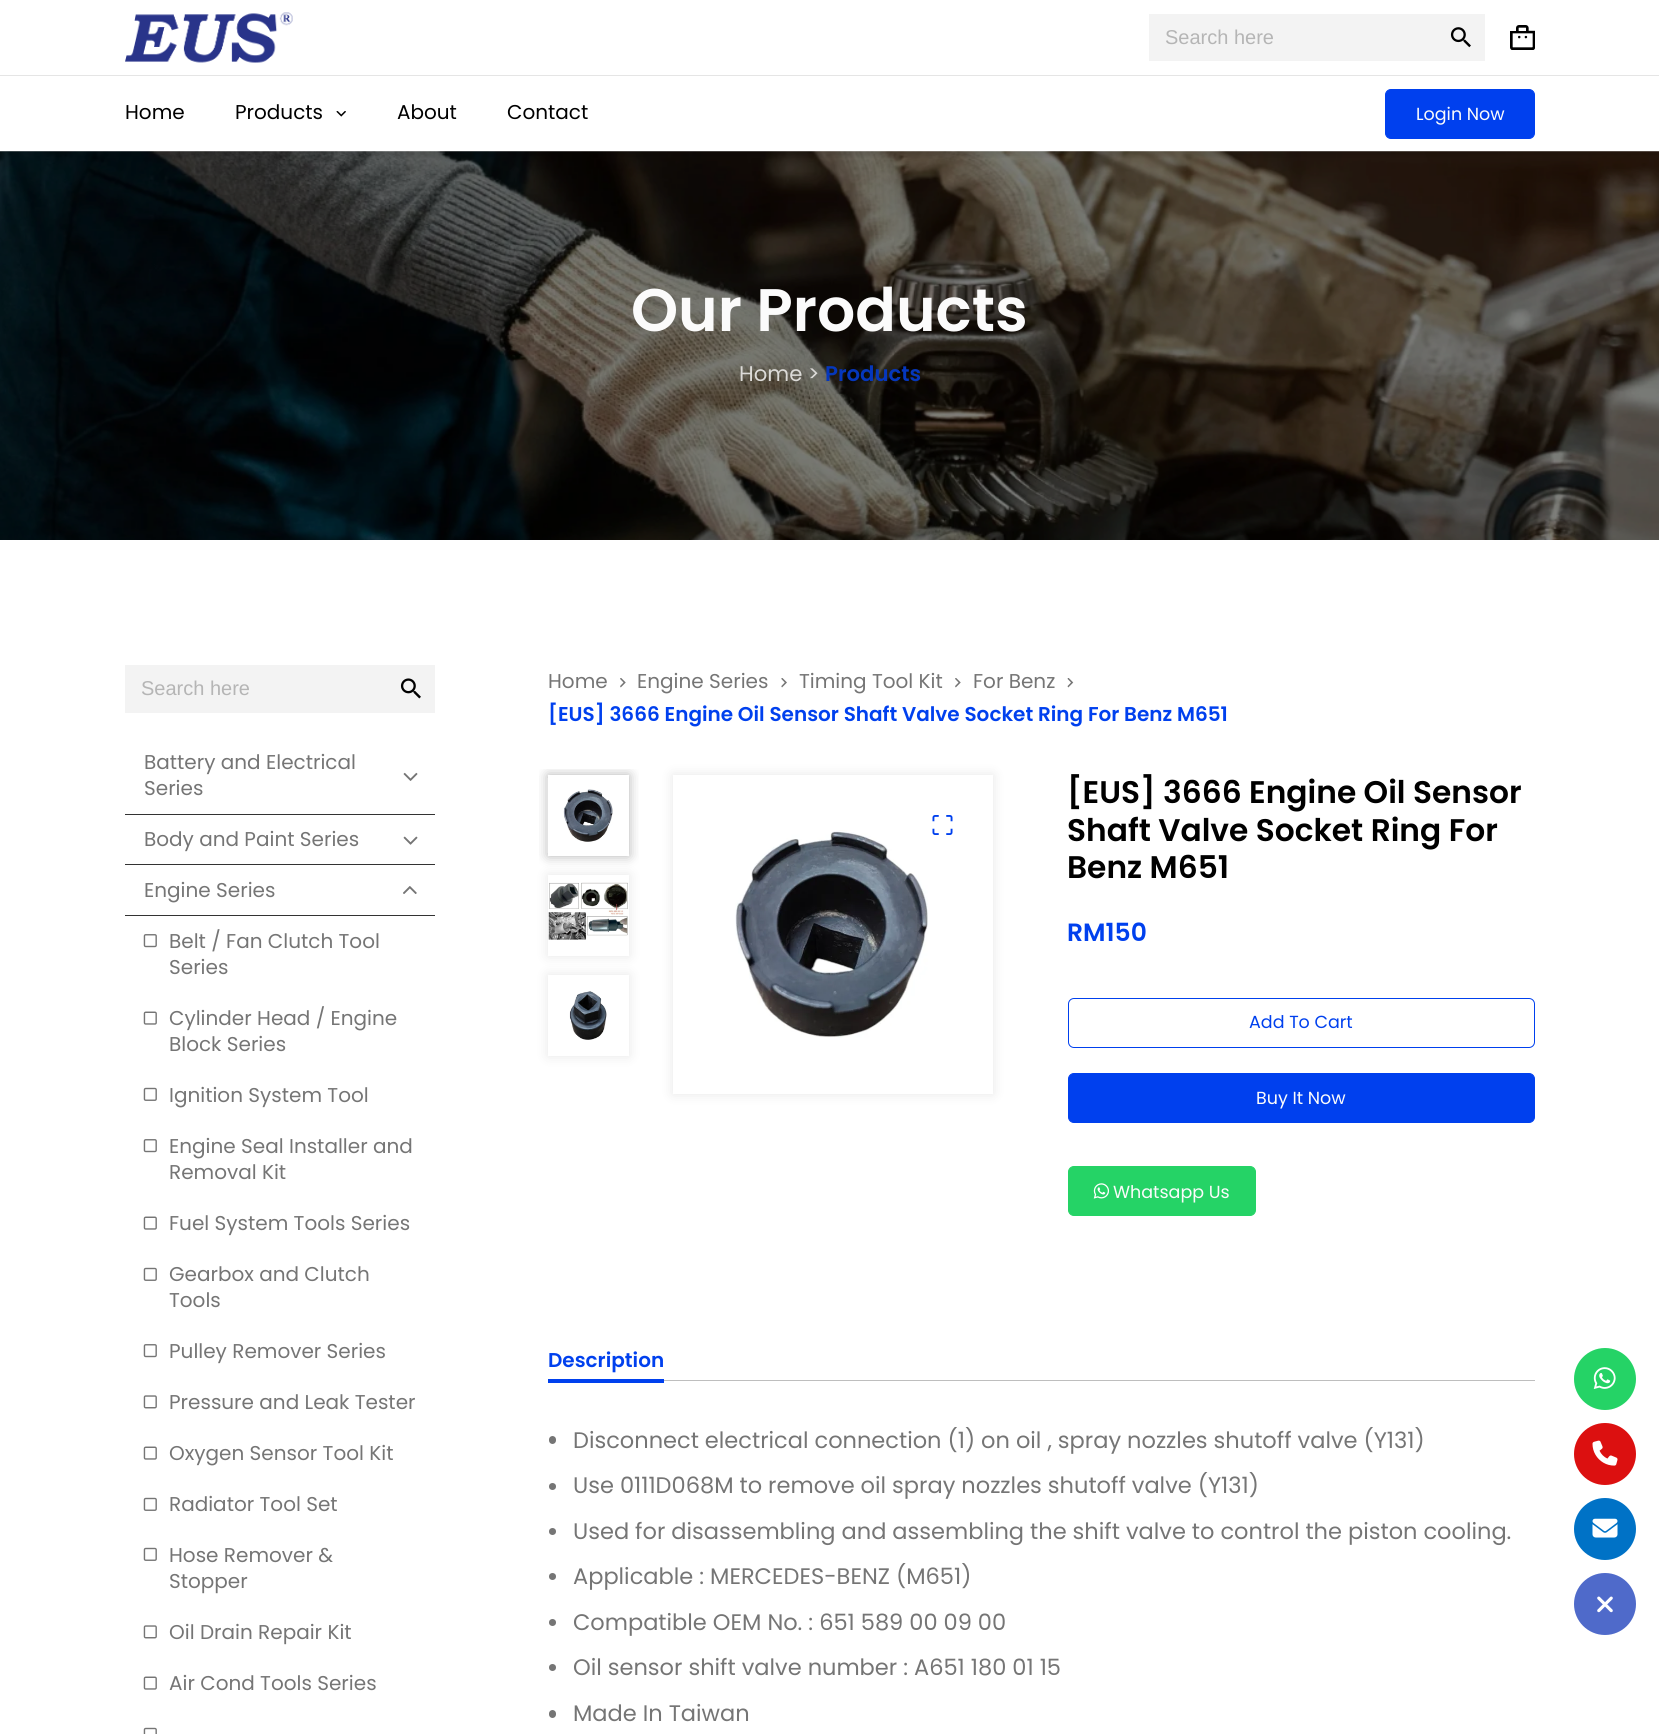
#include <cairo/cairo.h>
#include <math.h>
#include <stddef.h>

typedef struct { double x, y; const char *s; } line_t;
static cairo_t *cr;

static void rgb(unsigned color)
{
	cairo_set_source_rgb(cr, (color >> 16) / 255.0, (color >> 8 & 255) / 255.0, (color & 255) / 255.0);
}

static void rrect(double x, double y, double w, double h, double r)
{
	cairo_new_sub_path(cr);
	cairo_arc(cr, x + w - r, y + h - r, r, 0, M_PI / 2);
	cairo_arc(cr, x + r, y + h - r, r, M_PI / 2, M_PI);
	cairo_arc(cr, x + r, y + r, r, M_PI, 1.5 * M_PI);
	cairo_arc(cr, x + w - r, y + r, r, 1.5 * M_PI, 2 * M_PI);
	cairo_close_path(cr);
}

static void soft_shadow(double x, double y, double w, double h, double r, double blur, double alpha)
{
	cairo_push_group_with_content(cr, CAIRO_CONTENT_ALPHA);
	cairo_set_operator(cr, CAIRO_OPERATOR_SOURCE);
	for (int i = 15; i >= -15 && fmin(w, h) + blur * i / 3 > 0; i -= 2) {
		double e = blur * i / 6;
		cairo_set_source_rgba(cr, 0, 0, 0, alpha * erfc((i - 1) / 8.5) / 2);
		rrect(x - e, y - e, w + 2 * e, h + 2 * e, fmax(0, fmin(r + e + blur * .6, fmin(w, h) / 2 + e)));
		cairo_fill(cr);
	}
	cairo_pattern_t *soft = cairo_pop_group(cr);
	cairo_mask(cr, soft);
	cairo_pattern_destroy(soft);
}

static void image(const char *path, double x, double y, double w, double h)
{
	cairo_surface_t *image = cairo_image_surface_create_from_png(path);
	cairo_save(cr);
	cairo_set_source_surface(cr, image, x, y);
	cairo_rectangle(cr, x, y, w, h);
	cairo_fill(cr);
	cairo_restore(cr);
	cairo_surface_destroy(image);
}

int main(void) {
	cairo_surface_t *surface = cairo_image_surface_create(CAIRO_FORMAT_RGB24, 1659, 1734);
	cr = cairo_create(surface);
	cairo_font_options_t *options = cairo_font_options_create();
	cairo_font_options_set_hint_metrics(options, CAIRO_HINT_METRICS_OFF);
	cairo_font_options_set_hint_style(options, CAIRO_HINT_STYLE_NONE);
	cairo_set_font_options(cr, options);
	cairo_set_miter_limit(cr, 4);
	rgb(0xffffff);
	cairo_paint(cr);
	image("img/5.png", 0, 151, 1659, 389);
	cairo_save(cr);
	cairo_rectangle(cr, 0, 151, 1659, 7);
	cairo_clip(cr);
	rgb(0x000000);
	soft_shadow(0, 81, 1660, 75, 0, 2.5, 0.1);
	cairo_restore(cr);
	rgb(0xe5e5e5);
	cairo_rectangle(cr, 0, 75, 1659, 1);
	cairo_fill(cr);
	image("img/1.png", 125, 12, 168, 51);
	rgb(0xf3f3f3);
	cairo_rectangle(cr, 1149, 14, 336, 47);
	cairo_fill(cr);
	image("img/2.png", 1450, 27, 21, 21);
	image("img/3.png", 1510, 25, 25, 25);
	image("img/4.png", 336, 111, 10, 6);
	rgb(0x0040ee);
	rrect(1385.5, 89.5, 149, 49, 5.5);
	cairo_fill_preserve(cr);
	cairo_set_line_width(cr, 1);
	cairo_stroke(cr);
	rgb(0xf3f3f3);
	cairo_rectangle(cr, 125, 665, 310, 48);
	cairo_fill(cr);
	image("img/6.png", 400, 678, 21, 21);
	image("img/7.png", 403, 772, 15, 9);
	rgb(0x333333);
	cairo_rectangle(cr, 125, 814, 310, 1);
	cairo_fill(cr);
	image("img/8.png", 403, 836, 15, 9);
	cairo_rectangle(cr, 125, 864, 310, 1);
	cairo_fill(cr);
	image("img/9.png", 403, 886, 14, 8);
	cairo_rectangle(cr, 125, 915, 310, 1);
	cairo_fill(cr);
	image("img/10.png", 143, 934, 14, 14);
	image("img/11.png", 143, 1011, 14, 14);
	image("img/12.png", 143, 1087, 14, 14);
	image("img/10.png", 143, 1139, 14, 14);
	image("img/11.png", 143, 1216, 14, 14);
	image("img/12.png", 143, 1267, 14, 14);
	image("img/10.png", 143, 1344, 14, 14);
	image("img/13.png", 143, 1395, 14, 14);
	image("img/11.png", 143, 1446, 14, 14);
	image("img/12.png", 143, 1497, 14, 14);
	image("img/12.png", 143, 1547, 14, 14);
	image("img/13.png", 143, 1625, 14, 14);
	image("img/11.png", 143, 1676, 14, 14);
	image("img/14.png", 143, 1727, 14, 7);
	image("img/15.png", 620, 678, 6, 10);
	image("img/16.png", 781, 678, 6, 10);
	image("img/15.png", 955, 678, 6, 10);
	image("img/17.png", 1067, 678, 7, 10);
	cairo_save(cr);
	cairo_rectangle(cr, 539, 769, 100, 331);
	cairo_clip(cr);
	cairo_set_fill_rule(cr, CAIRO_FILL_RULE_EVEN_ODD);
	cairo_new_path(cr);
	cairo_move_to(cr, 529, 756);
	cairo_line_to(cr, 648, 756);
	cairo_line_to(cr, 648, 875);
	cairo_line_to(cr, 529, 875);
	cairo_close_path(cr);
	cairo_move_to(cr, 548, 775);
	cairo_line_to(cr, 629, 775);
	cairo_line_to(cr, 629, 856);
	cairo_line_to(cr, 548, 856);
	cairo_close_path(cr);
	cairo_clip(cr);
	rgb(0x000000);
	soft_shadow(548, 775, 81, 81, 0, 6, 0.3);
	cairo_restore(cr);
	image("img/18.png", 547, 778, 82, 75);
	cairo_save(cr);
	cairo_set_fill_rule(cr, CAIRO_FILL_RULE_EVEN_ODD);
	cairo_new_path(cr);
	cairo_move_to(cr, 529, 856);
	cairo_line_to(cr, 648, 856);
	cairo_line_to(cr, 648, 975);
	cairo_line_to(cr, 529, 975);
	cairo_close_path(cr);
	cairo_move_to(cr, 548, 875);
	cairo_line_to(cr, 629, 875);
	cairo_line_to(cr, 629, 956);
	cairo_line_to(cr, 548, 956);
	cairo_close_path(cr);
	cairo_clip(cr);
	rgb(0x000000);
	soft_shadow(548, 875, 81, 81, 0, 6, 0.1);
	cairo_restore(cr);
	image("img/19.png", 548, 882, 80, 58);
	cairo_save(cr);
	cairo_set_fill_rule(cr, CAIRO_FILL_RULE_EVEN_ODD);
	cairo_new_path(cr);
	cairo_move_to(cr, 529, 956);
	cairo_line_to(cr, 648, 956);
	cairo_line_to(cr, 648, 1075);
	cairo_line_to(cr, 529, 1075);
	cairo_close_path(cr);
	cairo_move_to(cr, 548, 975);
	cairo_line_to(cr, 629, 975);
	cairo_line_to(cr, 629, 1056);
	cairo_line_to(cr, 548, 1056);
	cairo_close_path(cr);
	cairo_clip(cr);
	rgb(0x000000);
	soft_shadow(548, 975, 81, 81, 0, 6, 0.1);
	cairo_restore(cr);
	image("img/20.png", 569, 991, 38, 49);
	rgb(0x000000);
	soft_shadow(673, 775, 320, 319, 0, 6, 0.1);
	rgb(0xffffff);
	cairo_rectangle(cr, 673, 775, 320, 319);
	cairo_fill(cr);
	image("img/21.png", 735, 830, 193, 208);
	image("img/22.png", 932, 815, 21, 20);
	rrect(1068.5, 998.5, 466, 49, 5.5);
	rgb(0x0040ee);
	cairo_stroke(cr);
	rrect(1068.5, 1073.5, 466, 49, 5.5);
	cairo_fill_preserve(cr);
	cairo_stroke(cr);
	rgb(0x25d366);
	rrect(1068.5, 1166.5, 187, 49, 5.5);
	cairo_fill_preserve(cr);
	cairo_stroke(cr);
	image("img/23.png", 1093, 1183, 17, 16);
	rgb(0xbebebe);
	cairo_rectangle(cr, 664, 1380, 871, 1);
	cairo_fill(cr);
	rgb(0x0040ee);
	cairo_rectangle(cr, 548, 1379, 116, 4);
	cairo_fill(cr);
	rgb(0x757575);
	rrect(549, 1436, 7, 8, 3.5);
	cairo_fill(cr);
	cairo_arc(cr, 552.5, 1486.5, 3.5, 0, 2 * M_PI);
	cairo_fill(cr);
	cairo_arc(cr, 552.5, 1531.5, 3.5, 0, 2 * M_PI);
	cairo_fill(cr);
	cairo_arc(cr, 552.5, 1576.5, 3.5, 0, 2 * M_PI);
	cairo_fill(cr);
	cairo_arc(cr, 552.5, 1622.5, 3.5, 0, 2 * M_PI);
	cairo_fill(cr);
	cairo_arc(cr, 552.5, 1667.5, 3.5, 0, 2 * M_PI);
	cairo_fill(cr);
	rrect(549, 1710, 7, 8, 3.5);
	cairo_fill(cr);
	rgb(0x25d366);
	cairo_arc(cr, 1605, 1379, 31, 0, 2 * M_PI);
	cairo_fill(cr);
	image("img/24.png", 1593, 1367, 23, 22);
	rgb(0xdc1010);
	cairo_arc(cr, 1605, 1454, 31, 0, 2 * M_PI);
	cairo_fill(cr);
	image("img/25.png", 1592, 1440, 26, 26);
	rgb(0x0072c6);
	cairo_arc(cr, 1605, 1529, 31, 0, 2 * M_PI);
	cairo_fill(cr);
	image("img/26.png", 1592, 1518, 26, 20);
	rgb(0x4f6aca);
	cairo_arc(cr, 1605, 1604, 31, 0, 2 * M_PI);
	cairo_fill(cr);
	image("img/27.png", 1597, 1596, 16, 17);
	cairo_select_font_face(cr, "Liberation Sans", CAIRO_FONT_SLANT_NORMAL, CAIRO_FONT_WEIGHT_NORMAL);
	cairo_set_font_size(cr, 20);
	rgb(0xb5b5b5);
	cairo_move_to(cr, 1165, 44);
	cairo_show_text(cr, "Search here");
	cairo_select_font_face(cr, "Poppins", CAIRO_FONT_SLANT_NORMAL, CAIRO_FONT_WEIGHT_NORMAL);
	rgb(0x000000);
	{
		static const line_t items[] = {
			{125, 119, "Home"},
			{235, 119, "Products"},
			{397, 119, "About"},
			{507, 119, "Contact"},
		};
		for (size_t i = 0; i < sizeof items / sizeof *items; i++) {
			cairo_move_to(cr, items[i].x, items[i].y);
			cairo_show_text(cr, items[i].s);
		}
	}
	cairo_set_font_size(cr, 17.5);
	rgb(0xfbfbfb);
	cairo_move_to(cr, 1416, 120);
	cairo_show_text(cr, "Login Now");
	cairo_select_font_face(cr, "Poppins SemiBold", CAIRO_FONT_SLANT_NORMAL, CAIRO_FONT_WEIGHT_NORMAL);
	cairo_set_font_size(cr, 60);
	cairo_move_to(cr, 631, 331);
	cairo_show_text(cr, "Our Products");
	cairo_select_font_face(cr, "Poppins", CAIRO_FONT_SLANT_NORMAL, CAIRO_FONT_WEIGHT_NORMAL);
	cairo_set_font_size(cr, 21.25);
	rgb(0xdcdbd8);
	cairo_move_to(cr, 739, 381);
	cairo_show_text(cr, "Home >");
	cairo_select_font_face(cr, "Poppins SemiBold", CAIRO_FONT_SLANT_NORMAL, CAIRO_FONT_WEIGHT_NORMAL);
	rgb(0x0537bd);
	cairo_move_to(cr, 825, 381);
	cairo_show_text(cr, "Products");
	cairo_select_font_face(cr, "Liberation Sans", CAIRO_FONT_SLANT_NORMAL, CAIRO_FONT_WEIGHT_NORMAL);
	cairo_set_font_size(cr, 20);
	rgb(0xb5b5b5);
	cairo_move_to(cr, 141, 695);
	cairo_show_text(cr, "Search here");
	cairo_select_font_face(cr, "Poppins", CAIRO_FONT_SLANT_NORMAL, CAIRO_FONT_WEIGHT_NORMAL);
	rgb(0x757575);
	{
		static const line_t items[] = {
			{144, 769, "Battery and Electrical"},
			{144, 795, "Series"},
			{144, 846, "Body and Paint Series"},
			{144, 897, "Engine Series"},
			{169, 948, "Belt / Fan Clutch Tool"},
			{169, 974, "Series"},
			{169, 1025, "Cylinder Head / Engine"},
			{169, 1051, "Block Series"},
			{169, 1102, "Ignition System Tool"},
			{169, 1153, "Engine Seal Installer and"},
			{169, 1179, "Removal Kit"},
			{169, 1230, "Fuel System Tools Series"},
			{169, 1281, "Gearbox and Clutch"},
			{169, 1307, "Tools"},
			{169, 1358, "Pulley Remover Series"},
			{169, 1409, "Pressure and Leak Tester"},
			{169, 1460, "Oxygen Sensor Tool Kit"},
			{169, 1511, "Radiator Tool Set"},
			{169, 1562, "Hose Remover &"},
			{169, 1588, "Stopper"},
			{169, 1639, "Oil Drain Repair Kit"},
			{169, 1690, "Air Cond Tools Series"},
			{548, 688, "Home"},
			{637, 688, "Engine Series"},
			{799, 688, "Timing Tool Kit"},
			{973, 688, "For Benz"},
		};
		for (size_t i = 0; i < sizeof items / sizeof *items; i++) {
			cairo_move_to(cr, items[i].x, items[i].y);
			cairo_show_text(cr, items[i].s);
		}
	}
	cairo_select_font_face(cr, "Poppins SemiBold", CAIRO_FONT_SLANT_NORMAL, CAIRO_FONT_WEIGHT_NORMAL);
	rgb(0x0040ee);
	cairo_move_to(cr, 548, 721);
	cairo_show_text(cr, "[EUS] 3666 Engine Oil Sensor Shaft Valve Socket Ring For Benz M651");
	cairo_set_font_size(cr, 31.25);
	rgb(0x000000);
	{
		static const line_t items[] = {
			{1067, 803, "[EUS] 3666 Engine Oil Sensor"},
			{1067, 841, "Shaft Valve Socket Ring For"},
			{1067, 878, "Benz M651"},
		};
		for (size_t i = 0; i < sizeof items / sizeof *items; i++) {
			cairo_move_to(cr, items[i].x, items[i].y);
			cairo_show_text(cr, items[i].s);
		}
	}
	cairo_set_font_size(cr, 25);
	rgb(0x0040ee);
	cairo_move_to(cr, 1067, 941);
	cairo_show_text(cr, "RM150");
	cairo_select_font_face(cr, "Poppins", CAIRO_FONT_SLANT_NORMAL, CAIRO_FONT_WEIGHT_NORMAL);
	cairo_set_font_size(cr, 17.5);
	cairo_move_to(cr, 1249, 1028);
	cairo_show_text(cr, "Add To Cart");
	rgb(0xfbfbfb);
	cairo_move_to(cr, 1256, 1104);
	cairo_show_text(cr, "Buy It Now");
	cairo_move_to(cr, 1113, 1198);
	cairo_show_text(cr, "Whatsapp Us");
	cairo_select_font_face(cr, "Poppins SemiBold", CAIRO_FONT_SLANT_NORMAL, CAIRO_FONT_WEIGHT_NORMAL);
	cairo_set_font_size(cr, 20);
	rgb(0x0040ee);
	cairo_move_to(cr, 548, 1367);
	cairo_show_text(cr, "Description");
	cairo_select_font_face(cr, "Poppins", CAIRO_FONT_SLANT_NORMAL, CAIRO_FONT_WEIGHT_NORMAL);
	cairo_set_font_size(cr, 22.5);
	rgb(0x757575);
	{
		static const line_t items[] = {
			{573, 1448, "Disconnect electrical connection (1) on oil , spray nozzles shutoff valve (Y131)"},
			{573, 1493, "Use 0111D068M to remove oil spray nozzles shutoff valve (Y131)"},
			{573, 1539, "Used for disassembling and assembling the shift valve to control the piston cooling."},
			{573, 1584, "Applicable : MERCEDES-BENZ (M651)"},
			{573, 1630, "Compatible OEM No. : 651 589 00 09 00"},
			{573, 1675, "Oil sensor shift valve number : A651 180 01 15"},
			{573, 1721, "Made In Taiwan"},
		};
		for (size_t i = 0; i < sizeof items / sizeof *items; i++) {
			cairo_move_to(cr, items[i].x, items[i].y);
			cairo_show_text(cr, items[i].s);
		}
	}
	cairo_surface_write_to_png(surface, "page.png");
	cairo_font_options_destroy(options);
	cairo_destroy(cr);
	cairo_surface_destroy(surface);
	return 0;
}
